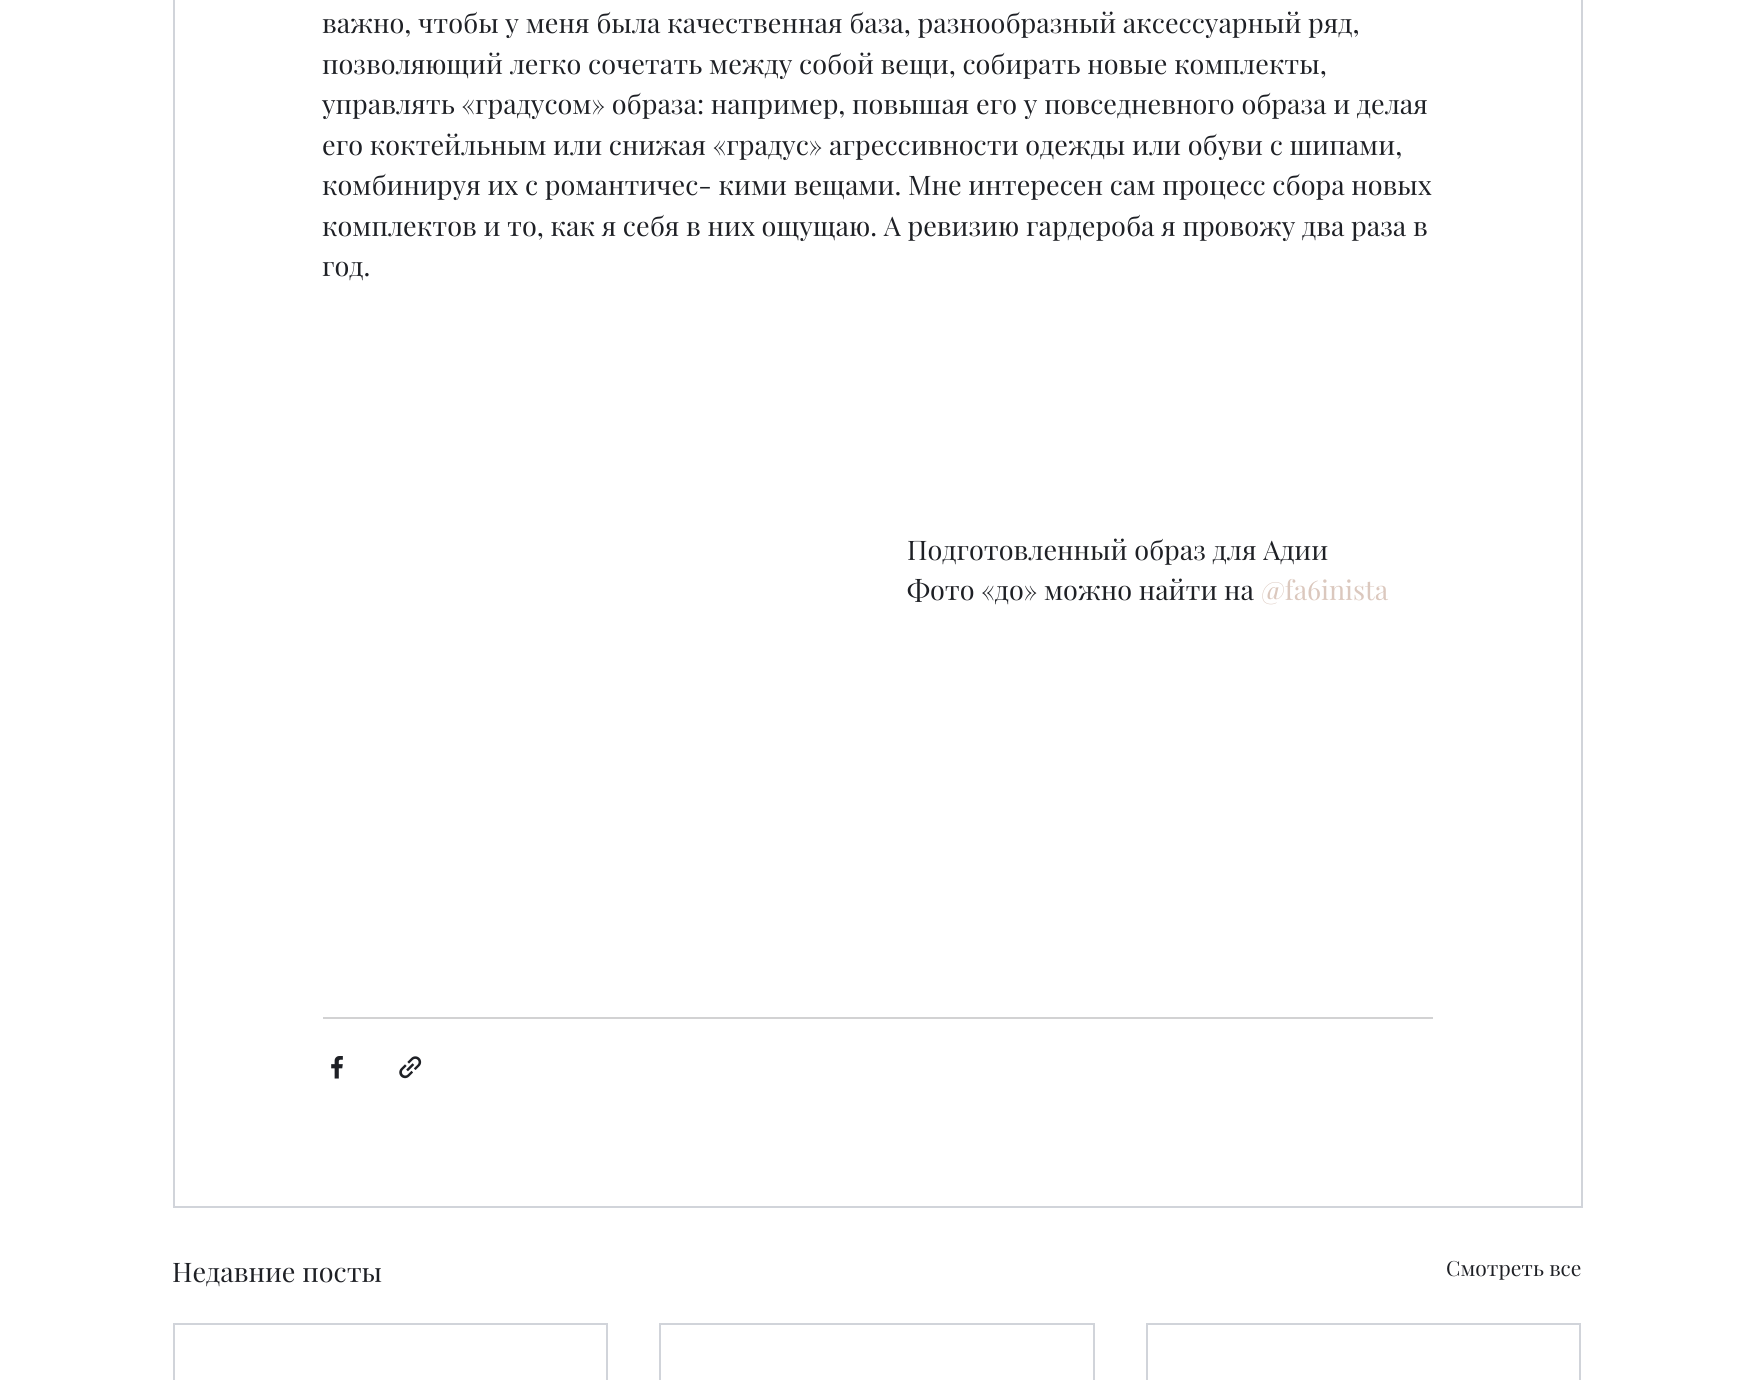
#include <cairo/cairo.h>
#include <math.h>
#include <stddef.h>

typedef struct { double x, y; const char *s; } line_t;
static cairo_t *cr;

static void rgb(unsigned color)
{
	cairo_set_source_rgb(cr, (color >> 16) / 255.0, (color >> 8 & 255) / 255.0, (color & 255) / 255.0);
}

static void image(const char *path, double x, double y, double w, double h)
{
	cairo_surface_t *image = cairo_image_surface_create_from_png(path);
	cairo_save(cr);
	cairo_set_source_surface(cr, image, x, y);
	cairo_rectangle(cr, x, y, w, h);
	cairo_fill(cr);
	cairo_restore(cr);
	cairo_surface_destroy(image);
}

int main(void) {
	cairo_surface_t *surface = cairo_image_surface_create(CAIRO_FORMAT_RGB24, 1741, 1380);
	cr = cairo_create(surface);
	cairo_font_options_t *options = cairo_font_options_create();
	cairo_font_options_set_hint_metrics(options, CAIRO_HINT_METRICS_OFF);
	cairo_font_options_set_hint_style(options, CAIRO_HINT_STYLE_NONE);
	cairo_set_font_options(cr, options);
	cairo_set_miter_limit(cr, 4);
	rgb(0xffffff);
	cairo_paint(cr);
	cairo_rectangle(cr, 174, -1, 1408, 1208);
	rgb(0xd1d4da);
	cairo_stroke(cr);
	rgb(0xd2d2d3);
	cairo_rectangle(cr, 323, 1017, 1110, 2);
	cairo_fill(cr);
	image("img/1.png", 331, 1056, 12, 23);
	image("img/2.png", 399, 1056, 23, 23);
	cairo_rectangle(cr, 174, 1324, 433, 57);
	rgb(0xd1d4da);
	cairo_stroke(cr);
	cairo_rectangle(cr, 660, 1324, 434, 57);
	cairo_stroke(cr);
	cairo_rectangle(cr, 1147, 1324, 433, 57);
	cairo_stroke(cr);
	cairo_select_font_face(cr, "Playfair Display", CAIRO_FONT_SLANT_NORMAL, CAIRO_FONT_WEIGHT_NORMAL);
	cairo_set_font_size(cr, 27);
	rgb(0x1e2025);
	{
		static const line_t items[] = {
			{322, 33, "важно, чтобы у меня была качественная база, разнообразный аксессуарный ряд,"},
			{322, 74, "позволяющий легко сочетать между собой вещи, собирать новые комплекты,"},
			{322, 114, "управлять «градусом» образа: например, повышая его у повседневного образа и делая"},
			{322, 155, "его коктейльным или снижая «градус» агрессивности одежды или обуви с шипами,"},
			{322, 195, "комбинируя их с романтичес- кими вещами. Мне интересен сам процесс сбора новых"},
			{322, 236, "комплектов и то, как я себя в них ощущаю. А ревизию гардероба я провожу два раза в"},
			{322, 276, "год."},
			{907, 560, "Подготовленный образ для Адии"},
			{907, 600, "Фото «до» можно найти на"},
		};
		for (size_t i = 0; i < sizeof items / sizeof *items; i++) {
			cairo_move_to(cr, items[i].x, items[i].y);
			cairo_show_text(cr, items[i].s);
		}
	}
	rgb(0xdbc8be);
	cairo_move_to(cr, 1261, 600);
	cairo_show_text(cr, "@fa6inista");
	rgb(0x1e2025);
	cairo_move_to(cr, 172, 1282);
	cairo_show_text(cr, "Недавние посты");
	cairo_set_font_size(cr, 21);
	cairo_move_to(cr, 1446, 1276);
	cairo_show_text(cr, "Смотреть все");
	cairo_surface_write_to_png(surface, "page.png");
	cairo_font_options_destroy(options);
	cairo_destroy(cr);
	cairo_surface_destroy(surface);
	return 0;
}
